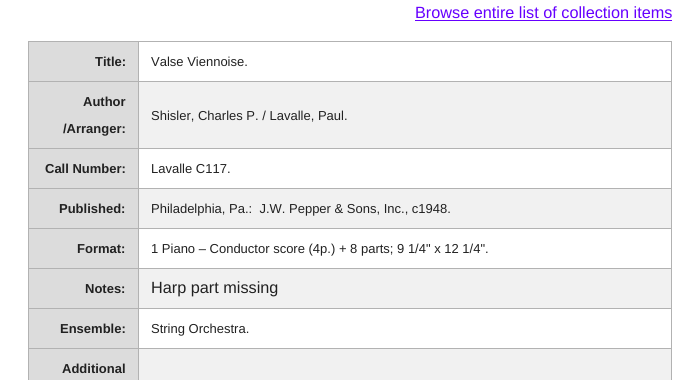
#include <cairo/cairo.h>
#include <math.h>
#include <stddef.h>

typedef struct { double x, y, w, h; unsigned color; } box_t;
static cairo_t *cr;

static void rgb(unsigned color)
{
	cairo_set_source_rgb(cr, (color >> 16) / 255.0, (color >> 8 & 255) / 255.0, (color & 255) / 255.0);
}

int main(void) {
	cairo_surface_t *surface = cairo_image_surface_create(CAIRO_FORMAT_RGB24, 700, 380);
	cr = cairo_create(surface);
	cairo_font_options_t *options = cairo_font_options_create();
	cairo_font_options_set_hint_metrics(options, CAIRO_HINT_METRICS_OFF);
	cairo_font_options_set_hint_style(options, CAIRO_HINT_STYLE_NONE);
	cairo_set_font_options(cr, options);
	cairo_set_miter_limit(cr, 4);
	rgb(0xffffff);
	cairo_paint(cr);
	{
		static const box_t items[] = {
			{415, 20, 257, 1, 0x6600ff},
			{29, 42, 109, 39, 0xdcdcdc},
			{138, 41, 534, 1, 0xb2b2b2},
			{138, 81, 534, 1, 0xb2b2b2},
			{138, 148, 534, 1, 0xb2b2b2},
			{138, 188, 534, 1, 0xb2b2b2},
			{138, 228, 534, 1, 0xb2b2b2},
			{138, 268, 534, 1, 0xb2b2b2},
			{138, 308, 534, 1, 0xb2b2b2},
			{138, 348, 534, 1, 0xb2b2b2},
			{138, 348, 1, 32, 0xb2b2b2},
			{28, 348, 111, 1, 0xb2b2b2},
			{138, 308, 1, 41, 0xb2b2b2},
			{28, 308, 111, 1, 0xb2b2b2},
			{138, 268, 1, 41, 0xb2b2b2},
			{28, 268, 111, 1, 0xb2b2b2},
			{138, 228, 1, 41, 0xb2b2b2},
			{28, 228, 111, 1, 0xb2b2b2},
			{138, 188, 1, 41, 0xb2b2b2},
			{28, 188, 111, 1, 0xb2b2b2},
			{138, 148, 1, 41, 0xb2b2b2},
			{28, 148, 111, 1, 0xb2b2b2},
			{138, 81, 1, 68, 0xb2b2b2},
			{28, 81, 111, 1, 0xb2b2b2},
			{138, 41, 1, 41, 0xb2b2b2},
			{28, 41, 111, 1, 0xb2b2b2},
			{28, 348, 1, 32, 0xb2b2b2},
			{28, 308, 1, 41, 0xb2b2b2},
			{28, 268, 1, 41, 0xb2b2b2},
			{28, 228, 1, 41, 0xb2b2b2},
			{28, 188, 1, 41, 0xb2b2b2},
			{28, 148, 1, 41, 0xb2b2b2},
			{28, 81, 1, 68, 0xb2b2b2},
			{28, 41, 1, 41, 0xb2b2b2},
			{671, 348, 1, 32, 0xb2b2b2},
			{671, 308, 1, 41, 0xb2b2b2},
			{671, 268, 1, 41, 0xb2b2b2},
			{671, 228, 1, 41, 0xb2b2b2},
			{671, 188, 1, 41, 0xb2b2b2},
			{671, 148, 1, 41, 0xb2b2b2},
			{671, 81, 1, 68, 0xb2b2b2},
			{671, 41, 1, 41, 0xb2b2b2},
			{139, 82, 532, 66, 0xf1f1f1},
			{29, 82, 109, 66, 0xdcdcdc},
			{29, 149, 109, 39, 0xdcdcdc},
			{139, 189, 532, 39, 0xf1f1f1},
			{29, 189, 109, 39, 0xdcdcdc},
			{29, 229, 109, 39, 0xdcdcdc},
			{139, 269, 532, 39, 0xf1f1f1},
			{29, 269, 109, 39, 0xdcdcdc},
			{29, 309, 109, 39, 0xdcdcdc},
			{139, 349, 532, 31, 0xf1f1f1},
			{29, 349, 109, 31, 0xdcdcdc},
		};
		for (size_t i = 0; i < sizeof items / sizeof *items; i++) {
			rgb(items[i].color);
			cairo_rectangle(cr, items[i].x, items[i].y, items[i].w, items[i].h);
			cairo_fill(cr);
		}
	}
	cairo_select_font_face(cr, "Liberation Sans", CAIRO_FONT_SLANT_NORMAL, CAIRO_FONT_WEIGHT_NORMAL);
	cairo_set_font_size(cr, 16.25);
	rgb(0x6600ff);
	cairo_move_to(cr, 415, 18);
	cairo_show_text(cr, "Browse entire list of collection items");
	cairo_select_font_face(cr, "Liberation Sans", CAIRO_FONT_SLANT_NORMAL, CAIRO_FONT_WEIGHT_BOLD);
	cairo_set_font_size(cr, 13);
	rgb(0x212121);
	cairo_move_to(cr, 95, 66);
	cairo_show_text(cr, "Title:");
	cairo_select_font_face(cr, "Liberation Sans", CAIRO_FONT_SLANT_NORMAL, CAIRO_FONT_WEIGHT_NORMAL);
	cairo_move_to(cr, 151, 66);
	cairo_show_text(cr, "Valse Viennoise.");
	cairo_select_font_face(cr, "Liberation Sans", CAIRO_FONT_SLANT_NORMAL, CAIRO_FONT_WEIGHT_BOLD);
	cairo_move_to(cr, 83, 106);
	cairo_show_text(cr, "Author");
	cairo_move_to(cr, 63, 133);
	cairo_show_text(cr, "/Arranger:");
	cairo_select_font_face(cr, "Liberation Sans", CAIRO_FONT_SLANT_NORMAL, CAIRO_FONT_WEIGHT_NORMAL);
	cairo_move_to(cr, 151, 120);
	cairo_show_text(cr, "Shisler, Charles P. / Lavalle, Paul.");
	cairo_select_font_face(cr, "Liberation Sans", CAIRO_FONT_SLANT_NORMAL, CAIRO_FONT_WEIGHT_BOLD);
	cairo_move_to(cr, 45, 173);
	cairo_show_text(cr, "Call Number:");
	cairo_select_font_face(cr, "Liberation Sans", CAIRO_FONT_SLANT_NORMAL, CAIRO_FONT_WEIGHT_NORMAL);
	cairo_move_to(cr, 151, 173);
	cairo_show_text(cr, "Lavalle C117.");
	cairo_select_font_face(cr, "Liberation Sans", CAIRO_FONT_SLANT_NORMAL, CAIRO_FONT_WEIGHT_BOLD);
	cairo_move_to(cr, 59, 213);
	cairo_show_text(cr, "Published:");
	cairo_select_font_face(cr, "Liberation Sans", CAIRO_FONT_SLANT_NORMAL, CAIRO_FONT_WEIGHT_NORMAL);
	cairo_move_to(cr, 151, 213);
	cairo_show_text(cr, "Philadelphia, Pa.:  J.W. Pepper & Sons, Inc., c1948.");
	cairo_select_font_face(cr, "Liberation Sans", CAIRO_FONT_SLANT_NORMAL, CAIRO_FONT_WEIGHT_BOLD);
	cairo_move_to(cr, 77, 253);
	cairo_show_text(cr, "Format:");
	cairo_select_font_face(cr, "Liberation Sans", CAIRO_FONT_SLANT_NORMAL, CAIRO_FONT_WEIGHT_NORMAL);
	cairo_move_to(cr, 151, 253);
	cairo_show_text(cr, "1 Piano – Conductor score (4p.) + 8 parts; 9 1/4\" x 12 1/4\".");
	cairo_select_font_face(cr, "Liberation Sans", CAIRO_FONT_SLANT_NORMAL, CAIRO_FONT_WEIGHT_BOLD);
	cairo_move_to(cr, 85, 293);
	cairo_show_text(cr, "Notes:");
	cairo_select_font_face(cr, "Liberation Sans", CAIRO_FONT_SLANT_NORMAL, CAIRO_FONT_WEIGHT_NORMAL);
	cairo_set_font_size(cr, 16.25);
	cairo_move_to(cr, 151, 293);
	cairo_show_text(cr, "Harp part missing");
	cairo_select_font_face(cr, "Liberation Sans", CAIRO_FONT_SLANT_NORMAL, CAIRO_FONT_WEIGHT_BOLD);
	cairo_set_font_size(cr, 13);
	cairo_move_to(cr, 60, 333);
	cairo_show_text(cr, "Ensemble:");
	cairo_select_font_face(cr, "Liberation Sans", CAIRO_FONT_SLANT_NORMAL, CAIRO_FONT_WEIGHT_NORMAL);
	cairo_move_to(cr, 151, 333);
	cairo_show_text(cr, "String Orchestra.");
	cairo_select_font_face(cr, "Liberation Sans", CAIRO_FONT_SLANT_NORMAL, CAIRO_FONT_WEIGHT_BOLD);
	cairo_move_to(cr, 62, 373);
	cairo_show_text(cr, "Additional");
	cairo_surface_write_to_png(surface, "page.png");
	cairo_font_options_destroy(options);
	cairo_destroy(cr);
	cairo_surface_destroy(surface);
	return 0;
}
